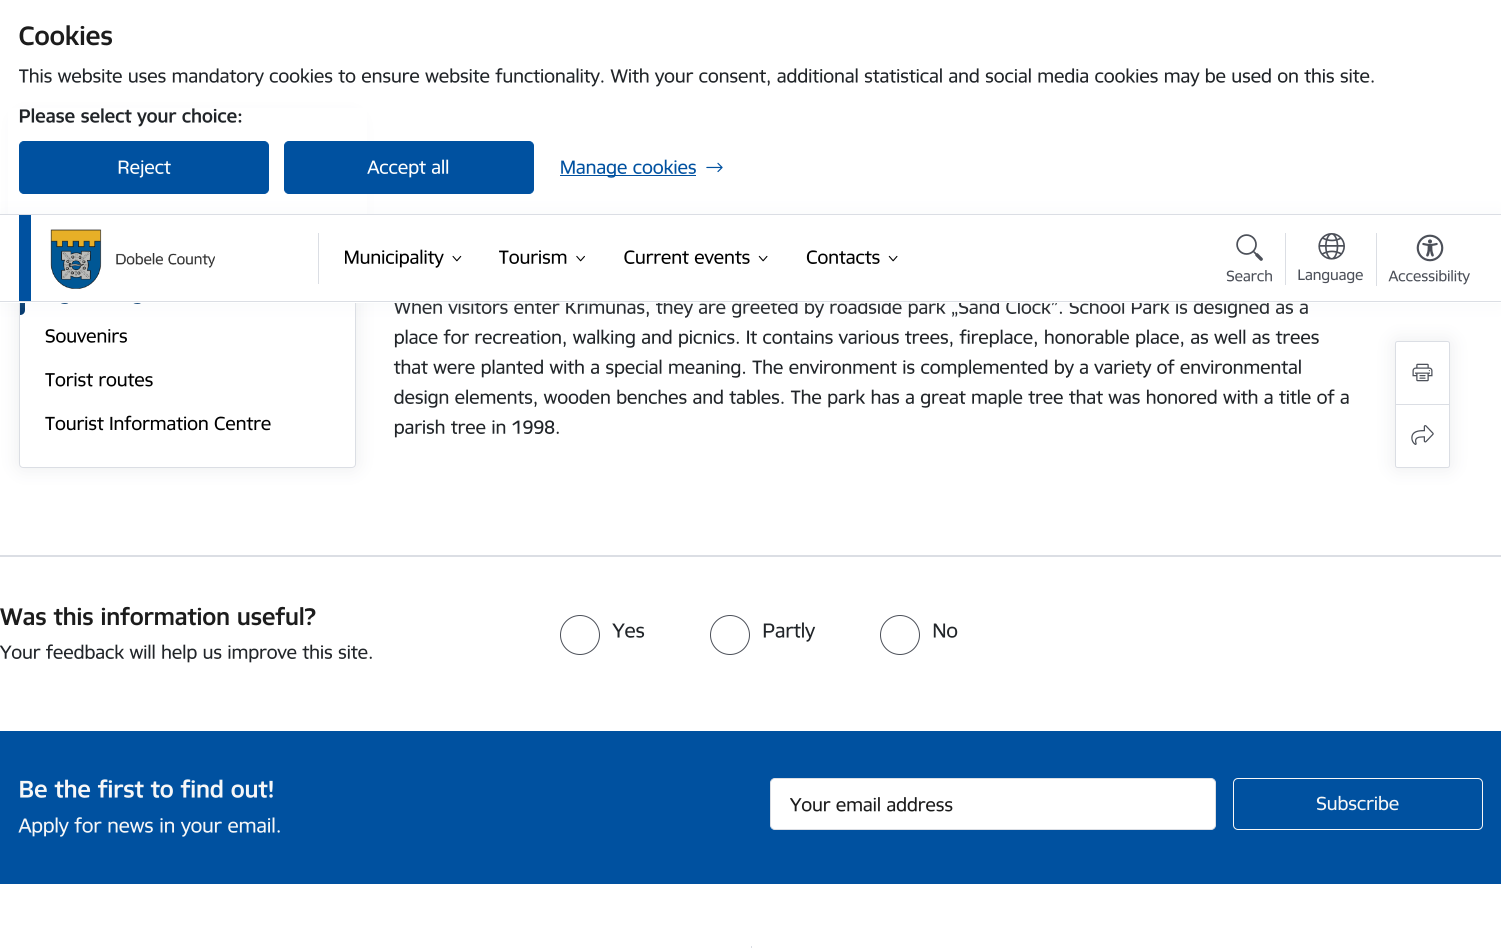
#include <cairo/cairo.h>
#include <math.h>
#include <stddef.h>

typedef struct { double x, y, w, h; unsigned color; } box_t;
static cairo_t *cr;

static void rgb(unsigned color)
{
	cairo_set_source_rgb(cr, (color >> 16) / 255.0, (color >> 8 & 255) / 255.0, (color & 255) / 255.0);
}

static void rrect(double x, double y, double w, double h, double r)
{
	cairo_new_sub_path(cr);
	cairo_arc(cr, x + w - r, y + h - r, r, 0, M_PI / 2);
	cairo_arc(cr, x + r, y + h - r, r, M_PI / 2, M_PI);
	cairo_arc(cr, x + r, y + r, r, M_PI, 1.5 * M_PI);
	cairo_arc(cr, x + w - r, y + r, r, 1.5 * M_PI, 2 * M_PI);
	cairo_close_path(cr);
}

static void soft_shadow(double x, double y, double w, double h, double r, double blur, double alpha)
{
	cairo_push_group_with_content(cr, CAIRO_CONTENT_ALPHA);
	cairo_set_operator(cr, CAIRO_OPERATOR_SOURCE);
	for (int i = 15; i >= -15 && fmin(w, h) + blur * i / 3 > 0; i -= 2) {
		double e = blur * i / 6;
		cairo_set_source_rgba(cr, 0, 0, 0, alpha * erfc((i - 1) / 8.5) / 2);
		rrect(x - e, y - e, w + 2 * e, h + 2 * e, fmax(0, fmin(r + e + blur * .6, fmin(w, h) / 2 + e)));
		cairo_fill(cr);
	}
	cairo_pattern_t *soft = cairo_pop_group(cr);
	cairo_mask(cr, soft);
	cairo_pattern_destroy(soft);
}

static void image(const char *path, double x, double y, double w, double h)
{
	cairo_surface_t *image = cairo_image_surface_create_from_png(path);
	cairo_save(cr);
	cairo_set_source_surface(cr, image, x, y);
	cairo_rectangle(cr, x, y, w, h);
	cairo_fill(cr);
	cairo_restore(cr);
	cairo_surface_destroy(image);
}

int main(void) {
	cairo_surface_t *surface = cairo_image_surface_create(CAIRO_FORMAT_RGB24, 1501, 948);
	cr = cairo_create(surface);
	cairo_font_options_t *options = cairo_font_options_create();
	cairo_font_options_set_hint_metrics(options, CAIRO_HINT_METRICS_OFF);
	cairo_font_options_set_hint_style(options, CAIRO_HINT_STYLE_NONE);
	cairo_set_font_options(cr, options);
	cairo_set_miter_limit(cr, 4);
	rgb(0xffffff);
	cairo_paint(cr);
	rgb(0xd8dadd);
	soft_shadow(19, 119, 337, 349, 4, 9.5, 0.5);
	rgb(0xffffff);
	rrect(19.5, 119.5, 336, 348, 3.5);
	cairo_fill_preserve(cr);
	rgb(0xdbdee4);
	cairo_set_line_width(cr, 1);
	cairo_stroke(cr);
	rgb(0xffffff);
	cairo_rectangle(cr, 8, 108, 359, 106);
	cairo_fill(cr);
	rgb(0xdbdee4);
	cairo_rectangle(cr, 0, 214, 1501, 1);
	cairo_fill(cr);
	image("img/1.png", 19, 25, 93, 21);
	image("img/2.png", 19, 68, 1355, 19);
	image("img/3.png", 19, 108, 223, 19);
	rgb(0x0051a0);
	rrect(19.5, 141.5, 249, 52, 4.5);
	cairo_fill_preserve(cr);
	cairo_stroke(cr);
	image("img/4.png", 118, 160, 53, 18);
	rrect(284.5, 141.5, 249, 52, 4.5);
	cairo_fill_preserve(cr);
	cairo_stroke(cr);
	image("img/5.png", 367, 159, 82, 19);
	cairo_rectangle(cr, 560, 175, 136, 1);
	cairo_fill(cr);
	image("img/6.png", 561, 159, 135, 19);
	image("img/7.png", 706, 162, 17, 11);
	rgb(0x00376c);
	cairo_new_path(cr);
	cairo_move_to(cr, 20, 271);
	cairo_curve_to(cr, 23, 271, 25, 273, 25, 276);
	cairo_line_to(cr, 25, 310);
	cairo_curve_to(cr, 25, 313, 23, 315, 20, 315);
	cairo_close_path(cr);
	cairo_fill(cr);
	image("img/22.png", 61, 303, 80, 1);
	image("img/23.png", 45, 329, 82, 14);
	image("img/26.png", 394, 303, 914, 15);
	image("img/27.png", 394, 329, 925, 19);
	rgb(0xdbdee4);
	soft_shadow(0, 215, 1501, 88, 0, 9.5, 0.2);
	{
		static const box_t items[] = {
			{0, 215, 1501, 88, 0xffffff},
			{0, 301, 1501, 1, 0xdbdee4},
			{19, 215, 12, 86, 0x0051a0},
		};
		for (size_t i = 0; i < sizeof items / sizeof *items; i++) {
			rgb(items[i].color);
			cairo_rectangle(cr, items[i].x, items[i].y, items[i].w, items[i].h);
			cairo_fill(cr);
		}
	}
	image("img/8.png", 50, 229, 165, 60);
	rgb(0xdbdee4);
	cairo_rectangle(cr, 318, 233, 1, 51);
	cairo_fill(cr);
	image("img/9.png", 345, 249, 99, 19);
	image("img/10.png", 452, 255, 10, 7);
	image("img/11.png", 499, 250, 68, 14);
	image("img/12.png", 576, 255, 9, 7);
	image("img/13.png", 624, 250, 126, 14);
	image("img/14.png", 758, 255, 10, 7);
	image("img/15.png", 806, 250, 74, 14);
	image("img/14.png", 888, 255, 10, 7);
	image("img/16.png", 1236, 234, 27, 27);
	image("img/17.png", 1226, 270, 46, 12);
	cairo_rectangle(cr, 1285, 233, 1, 52);
	cairo_fill(cr);
	image("img/18.png", 1318, 233, 27, 27);
	image("img/19.png", 1298, 269, 65, 15);
	cairo_rectangle(cr, 1376, 233, 1, 53);
	cairo_fill(cr);
	image("img/20.png", 1416, 234, 28, 28);
	image("img/21.png", 1388, 270, 82, 15);
	image("img/24.png", 45, 372, 108, 15);
	image("img/25.png", 45, 415, 226, 16);
	image("img/28.png", 393, 359, 908, 19);
	image("img/29.png", 394, 389, 955, 19);
	image("img/30.png", 394, 419, 165, 19);
	rgb(0xd8dadd);
	soft_shadow(1395, 341, 55, 127, 2.5, 9.5, 0.5);
	rgb(0xffffff);
	rrect(1395.5, 341.5, 54, 126, 2);
	cairo_fill_preserve(cr);
	rgb(0xdbdee4);
	cairo_stroke(cr);
	cairo_rectangle(cr, 1396, 404, 53, 1);
	cairo_fill(cr);
	image("img/31.png", 1412, 363, 21, 19);
	image("img/32.png", 1411, 425, 23, 20);
	cairo_rectangle(cr, 0, 555, 1501, 2);
	cairo_fill(cr);
	image("img/33.png", 0, 606, 316, 20);
	image("img/34.png", 0, 644, 372, 19);
	cairo_arc(cr, 580, 635, 19.5, 0, 2 * M_PI);
	rgb(0x4c5059);
	cairo_stroke(cr);
	image("img/35.png", 612, 623, 33, 15);
	cairo_arc(cr, 730, 635, 19.5, 0, 2 * M_PI);
	cairo_stroke(cr);
	image("img/36.png", 763, 622, 53, 20);
	cairo_arc(cr, 900, 635, 19.5, 0, 2 * M_PI);
	cairo_stroke(cr);
	image("img/37.png", 933, 623, 25, 15);
	rgb(0x0051a0);
	cairo_rectangle(cr, 0, 731, 1501, 153);
	cairo_fill(cr);
	image("img/38.png", 20, 779, 253, 19);
	image("img/39.png", 18, 817, 262, 20);
	rgb(0xffffff);
	rrect(770.5, 778.5, 445, 51, 4.5);
	cairo_fill_preserve(cr);
	rgb(0xdbdee4);
	cairo_stroke(cr);
	image("img/40.png", 790, 797, 163, 15);
	rrect(1233.5, 778.5, 249, 51, 4.5);
	rgb(0xf7f7f7);
	cairo_stroke(cr);
	image("img/41.png", 1316, 795, 83, 16);
	rgb(0xdbdee4);
	cairo_rectangle(cr, 751, 946, 1, 2);
	cairo_fill(cr);
	cairo_surface_write_to_png(surface, "page.png");
	cairo_font_options_destroy(options);
	cairo_destroy(cr);
	cairo_surface_destroy(surface);
	return 0;
}
